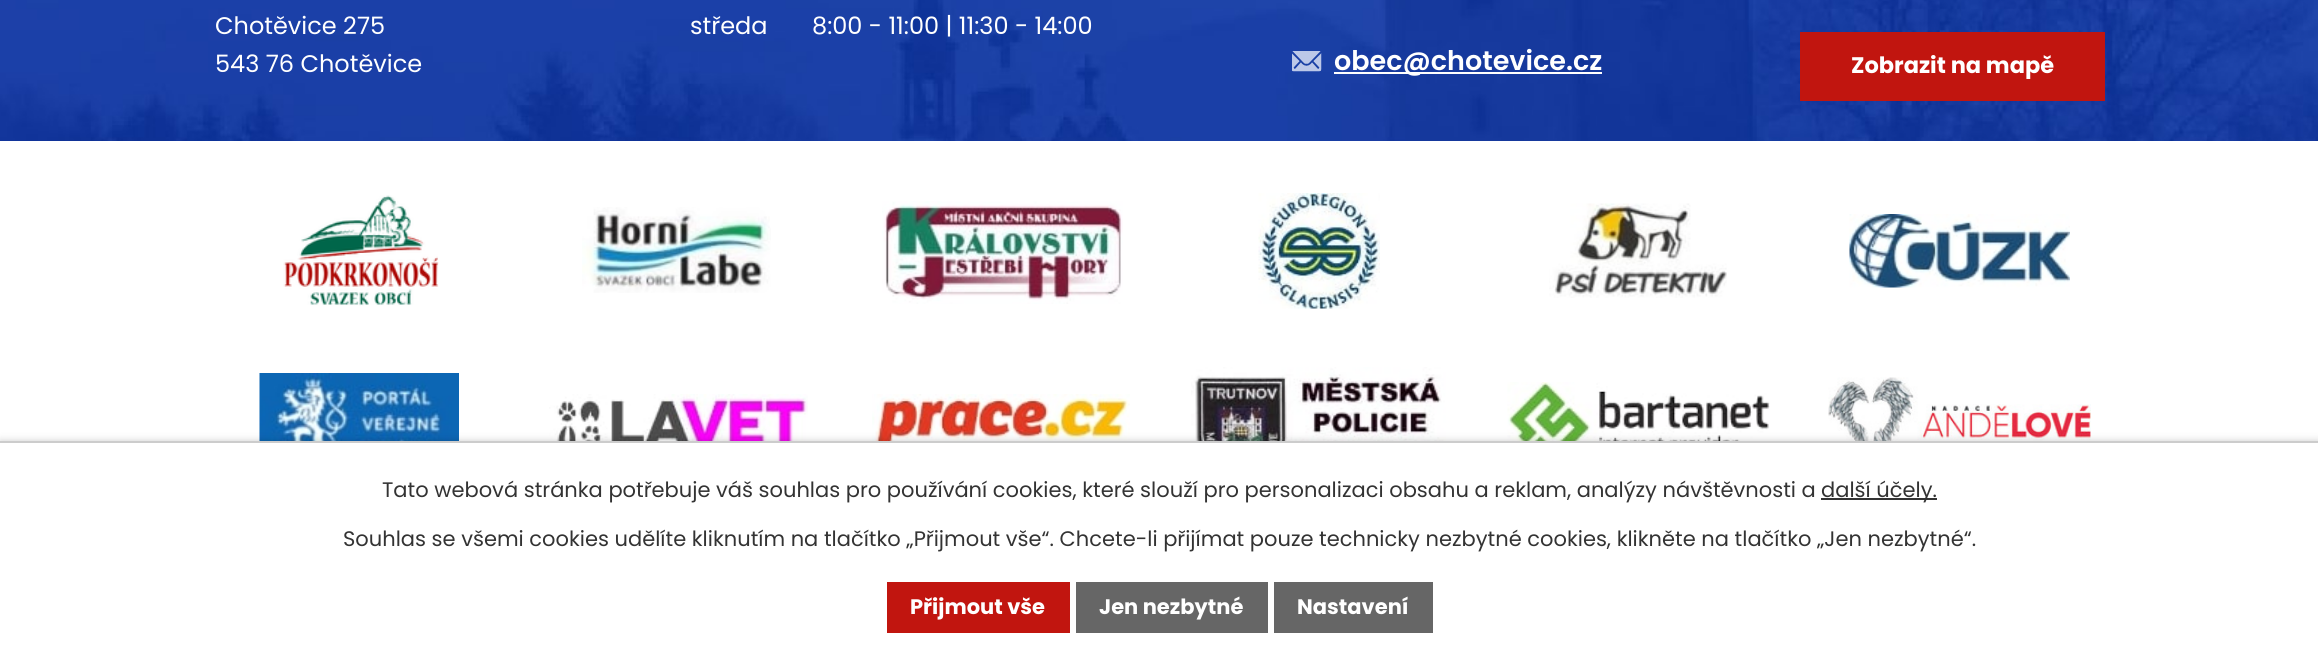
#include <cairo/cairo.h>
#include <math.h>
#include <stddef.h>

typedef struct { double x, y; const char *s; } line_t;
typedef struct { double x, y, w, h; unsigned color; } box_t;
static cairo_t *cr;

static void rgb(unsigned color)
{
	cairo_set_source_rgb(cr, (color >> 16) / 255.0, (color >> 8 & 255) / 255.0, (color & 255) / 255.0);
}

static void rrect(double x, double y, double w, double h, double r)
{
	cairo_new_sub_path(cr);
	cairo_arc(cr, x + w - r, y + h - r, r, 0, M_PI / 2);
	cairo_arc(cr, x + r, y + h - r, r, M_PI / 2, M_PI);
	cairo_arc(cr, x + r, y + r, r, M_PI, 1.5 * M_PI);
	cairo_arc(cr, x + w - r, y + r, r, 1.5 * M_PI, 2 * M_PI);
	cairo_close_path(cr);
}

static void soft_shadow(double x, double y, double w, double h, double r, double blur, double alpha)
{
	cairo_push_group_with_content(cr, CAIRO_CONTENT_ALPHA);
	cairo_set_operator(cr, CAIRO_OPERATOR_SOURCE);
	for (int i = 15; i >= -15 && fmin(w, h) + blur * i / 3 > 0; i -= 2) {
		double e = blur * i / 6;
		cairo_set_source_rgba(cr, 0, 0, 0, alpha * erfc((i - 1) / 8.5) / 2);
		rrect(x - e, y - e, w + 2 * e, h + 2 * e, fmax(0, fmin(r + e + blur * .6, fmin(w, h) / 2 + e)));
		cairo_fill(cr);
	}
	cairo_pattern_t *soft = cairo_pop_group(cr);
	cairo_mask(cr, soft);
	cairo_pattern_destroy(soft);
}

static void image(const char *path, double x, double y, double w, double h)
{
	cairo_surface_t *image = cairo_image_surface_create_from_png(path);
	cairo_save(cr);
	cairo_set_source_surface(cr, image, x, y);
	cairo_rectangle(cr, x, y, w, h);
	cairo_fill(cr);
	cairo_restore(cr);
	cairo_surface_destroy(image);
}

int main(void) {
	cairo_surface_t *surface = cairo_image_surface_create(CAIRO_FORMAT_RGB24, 2318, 660);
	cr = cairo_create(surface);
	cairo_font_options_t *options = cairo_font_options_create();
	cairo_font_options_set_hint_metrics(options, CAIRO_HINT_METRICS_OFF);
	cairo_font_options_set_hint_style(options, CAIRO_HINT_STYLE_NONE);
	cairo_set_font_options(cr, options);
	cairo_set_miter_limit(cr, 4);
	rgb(0xffffff);
	cairo_paint(cr);
	image("img/1.png", 0, 0, 2318, 141);
	image("img/2.png", 1292, 51, 30, 21);
	rgb(0xffffff);
	cairo_rectangle(cr, 1334, 72, 268, 2);
	cairo_fill(cr);
	rgb(0xc1150f);
	cairo_rectangle(cr, 1800, 32, 305, 69);
	cairo_fill(cr);
	image("img/3.png", 283, 195, 156, 111);
	image("img/4.png", 582, 207, 189, 86);
	image("img/5.png", 882, 201, 241, 103);
	image("img/6.png", 1258, 193, 122, 116);
	image("img/7.png", 1549, 203, 178, 95);
	image("img/8.png", 1849, 214, 221, 74);
	image("img/9.png", 259, 373, 200, 68);
	image("img/10.png", 549, 394, 259, 47);
	image("img/11.png", 872, 394, 258, 47);
	image("img/12.png", 1191, 367, 255, 74);
	image("img/13.png", 1507, 382, 263, 59);
	image("img/14.png", 1828, 377, 263, 64);
	rgb(0x000000);
	soft_shadow(0, 441, 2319, 219, 0, 4, 0.2);
	{
		static const box_t items[] = {
			{0, 443, 2318, 217, 0xffffff},
			{0, 441, 2318, 2, 0xcccccc},
			{1821, 498, 116, 2, 0x333333},
			{887, 582, 183, 51, 0xc1150f},
			{1076, 582, 192, 51, 0x666666},
			{1274, 582, 159, 51, 0x666666},
		};
		for (size_t i = 0; i < sizeof items / sizeof *items; i++) {
			rgb(items[i].color);
			cairo_rectangle(cr, items[i].x, items[i].y, items[i].w, items[i].h);
			cairo_fill(cr);
		}
	}
	cairo_select_font_face(cr, "Poppins", CAIRO_FONT_SLANT_NORMAL, CAIRO_FONT_WEIGHT_NORMAL);
	cairo_set_font_size(cr, 24);
	rgb(0xffffff);
	{
		static const line_t items[] = {
			{215, 34, "Chotěvice 275"},
			{215, 72, "543 76 Chotěvice"},
			{690, 34, "středa"},
			{812, 34, "8:00 - 11:00 | 11:30 - 14:00"},
		};
		for (size_t i = 0; i < sizeof items / sizeof *items; i++) {
			cairo_move_to(cr, items[i].x, items[i].y);
			cairo_show_text(cr, items[i].s);
		}
	}
	cairo_select_font_face(cr, "Poppins SemiBold", CAIRO_FONT_SLANT_NORMAL, CAIRO_FONT_WEIGHT_NORMAL);
	cairo_set_font_size(cr, 27);
	cairo_move_to(cr, 1334, 70);
	cairo_show_text(cr, "obec@chotevice.cz");
	cairo_select_font_face(cr, "Poppins", CAIRO_FONT_SLANT_NORMAL, CAIRO_FONT_WEIGHT_BOLD);
	cairo_set_font_size(cr, 22.5);
	cairo_move_to(cr, 1851, 73);
	cairo_show_text(cr, "Zobrazit na mapě");
	cairo_select_font_face(cr, "Poppins", CAIRO_FONT_SLANT_NORMAL, CAIRO_FONT_WEIGHT_NORMAL);
	cairo_set_font_size(cr, 21);
	rgb(0x333333);
	{
		static const line_t items[] = {
			{382, 497, "Tato webová stránka potřebuje váš souhlas pro používání cookies, které slouží pro personalizaci obsahu a reklam, analýzy návštěvnosti a"},
			{1821, 497, "další účely."},
			{343, 546, "Souhlas se všemi cookies udělíte kliknutím na tlačítko „Přijmout vše“. Chcete-li přijímat pouze technicky nezbytné cookies, klikněte na tlačítko „Jen nezbytné“."},
		};
		for (size_t i = 0; i < sizeof items / sizeof *items; i++) {
			cairo_move_to(cr, items[i].x, items[i].y);
			cairo_show_text(cr, items[i].s);
		}
	}
	cairo_select_font_face(cr, "Poppins", CAIRO_FONT_SLANT_NORMAL, CAIRO_FONT_WEIGHT_BOLD);
	rgb(0xffffff);
	{
		static const line_t items[] = {
			{910, 614, "Přijmout vše"},
			{1099, 614, "Jen nezbytné"},
			{1297, 614, "Nastavení"},
		};
		for (size_t i = 0; i < sizeof items / sizeof *items; i++) {
			cairo_move_to(cr, items[i].x, items[i].y);
			cairo_show_text(cr, items[i].s);
		}
	}
	cairo_surface_write_to_png(surface, "page.png");
	cairo_font_options_destroy(options);
	cairo_destroy(cr);
	cairo_surface_destroy(surface);
	return 0;
}
